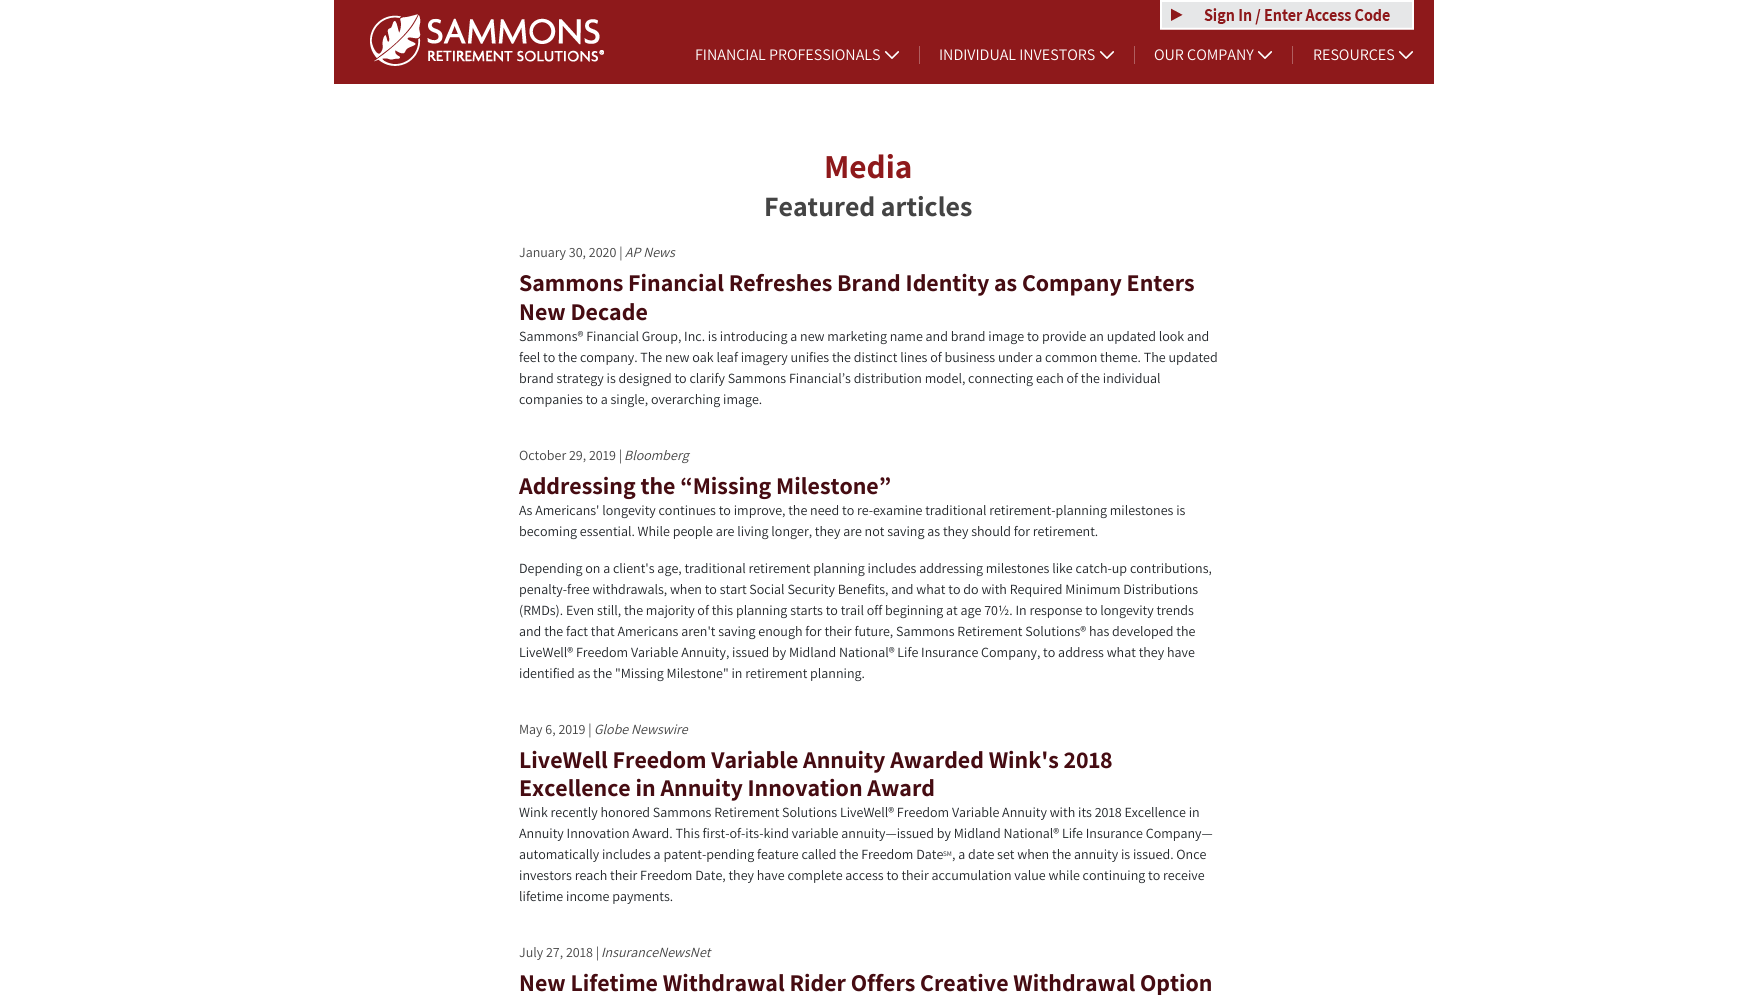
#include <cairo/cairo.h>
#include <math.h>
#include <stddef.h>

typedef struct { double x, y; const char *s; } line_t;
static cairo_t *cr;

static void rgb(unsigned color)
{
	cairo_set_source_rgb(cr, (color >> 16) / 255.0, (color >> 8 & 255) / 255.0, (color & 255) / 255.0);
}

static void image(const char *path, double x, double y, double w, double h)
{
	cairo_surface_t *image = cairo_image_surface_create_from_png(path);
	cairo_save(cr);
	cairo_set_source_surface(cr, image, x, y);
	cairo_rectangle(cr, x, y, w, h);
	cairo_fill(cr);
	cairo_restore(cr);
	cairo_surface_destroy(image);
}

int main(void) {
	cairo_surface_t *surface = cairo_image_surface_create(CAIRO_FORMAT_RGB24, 1737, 995);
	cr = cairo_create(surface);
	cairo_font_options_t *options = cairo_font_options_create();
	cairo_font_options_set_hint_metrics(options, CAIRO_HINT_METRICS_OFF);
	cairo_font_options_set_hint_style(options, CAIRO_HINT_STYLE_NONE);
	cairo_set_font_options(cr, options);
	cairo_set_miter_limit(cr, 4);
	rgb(0xffffff);
	cairo_paint(cr);
	rgb(0x8e191b);
	cairo_rectangle(cr, 334, 0, 1100, 84);
	cairo_fill(cr);
	image("img/1.png", 370, 14, 234, 52);
	image("img/2.png", 1160, 0, 254, 30);
	rgb(0xb05e5f);
	cairo_rectangle(cr, 919, 46, 1, 18);
	cairo_fill(cr);
	image("img/3.png", 884, 51, 15, 8);
	cairo_rectangle(cr, 1134, 46, 1, 18);
	cairo_fill(cr);
	image("img/3.png", 1099, 51, 15, 8);
	cairo_rectangle(cr, 1292, 46, 1, 18);
	cairo_fill(cr);
	image("img/4.png", 1258, 51, 14, 8);
	image("img/3.png", 1398, 51, 15, 8);
	cairo_select_font_face(cr, "Assistant", CAIRO_FONT_SLANT_NORMAL, CAIRO_FONT_WEIGHT_NORMAL);
	cairo_set_font_size(cr, 16);
	rgb(0xffffff);
	{
		static const line_t items[] = {
			{695, 60, "FINANCIAL PROFESSIONALS"},
			{939, 60, "INDIVIDUAL INVESTORS"},
			{1154, 60, "OUR COMPANY"},
			{1313, 60, "RESOURCES"},
		};
		for (size_t i = 0; i < sizeof items / sizeof *items; i++) {
			cairo_move_to(cr, items[i].x, items[i].y);
			cairo_show_text(cr, items[i].s);
		}
	}
	cairo_select_font_face(cr, "Assistant", CAIRO_FONT_SLANT_NORMAL, CAIRO_FONT_WEIGHT_BOLD);
	cairo_set_font_size(cr, 33.5);
	rgb(0x8e191b);
	cairo_move_to(cr, 824, 178);
	cairo_show_text(cr, "Media");
	cairo_set_font_size(cr, 28);
	rgb(0x444444);
	cairo_move_to(cr, 764, 216);
	cairo_show_text(cr, "Featured articles");
	cairo_select_font_face(cr, "Assistant", CAIRO_FONT_SLANT_NORMAL, CAIRO_FONT_WEIGHT_NORMAL);
	cairo_set_font_size(cr, 14);
	cairo_move_to(cr, 519, 257);
	cairo_show_text(cr, "January 30, 2020 |");
	cairo_select_font_face(cr, "Assistant", CAIRO_FONT_SLANT_ITALIC, CAIRO_FONT_WEIGHT_NORMAL);
	cairo_move_to(cr, 625, 257);
	cairo_show_text(cr, "AP News");
	cairo_select_font_face(cr, "Assistant", CAIRO_FONT_SLANT_NORMAL, CAIRO_FONT_WEIGHT_BOLD);
	cairo_set_font_size(cr, 24);
	rgb(0x460c12);
	cairo_move_to(cr, 519, 291);
	cairo_show_text(cr, "Sammons Financial Refreshes Brand Identity as Company Enters");
	cairo_move_to(cr, 519, 320);
	cairo_show_text(cr, "New Decade");
	cairo_select_font_face(cr, "Assistant", CAIRO_FONT_SLANT_NORMAL, CAIRO_FONT_WEIGHT_NORMAL);
	cairo_set_font_size(cr, 14);
	rgb(0x212529);
	{
		static const line_t items[] = {
			{519, 341, "Sammons® Financial Group, Inc. is introducing a new marketing name and brand image to provide an updated look and"},
			{519, 362, "feel to the company. The new oak leaf imagery unifies the distinct lines of business under a common theme. The updated"},
			{519, 383, "brand strategy is designed to clarify Sammons Financial’s distribution model, connecting each of the individual"},
			{519, 404, "companies to a single, overarching image."},
		};
		for (size_t i = 0; i < sizeof items / sizeof *items; i++) {
			cairo_move_to(cr, items[i].x, items[i].y);
			cairo_show_text(cr, items[i].s);
		}
	}
	rgb(0x444444);
	cairo_move_to(cr, 519, 460);
	cairo_show_text(cr, "October 29, 2019 |");
	cairo_select_font_face(cr, "Assistant", CAIRO_FONT_SLANT_ITALIC, CAIRO_FONT_WEIGHT_NORMAL);
	cairo_move_to(cr, 624, 460);
	cairo_show_text(cr, "Bloomberg");
	cairo_select_font_face(cr, "Assistant", CAIRO_FONT_SLANT_NORMAL, CAIRO_FONT_WEIGHT_BOLD);
	cairo_set_font_size(cr, 24);
	rgb(0x460c12);
	cairo_move_to(cr, 519, 494);
	cairo_show_text(cr, "Addressing the “Missing Milestone”");
	cairo_select_font_face(cr, "Assistant", CAIRO_FONT_SLANT_NORMAL, CAIRO_FONT_WEIGHT_NORMAL);
	cairo_set_font_size(cr, 14);
	rgb(0x212529);
	{
		static const line_t items[] = {
			{519, 515, "As Americans' longevity continues to improve, the need to re-examine traditional retirement-planning milestones is"},
			{519, 536, "becoming essential. While people are living longer, they are not saving as they should for retirement."},
			{519, 573, "Depending on a client's age, traditional retirement planning includes addressing milestones like catch-up contributions,"},
			{519, 594, "penalty-free withdrawals, when to start Social Security Benefits, and what to do with Required Minimum Distributions"},
			{519, 615, "(RMDs). Even still, the majority of this planning starts to trail off beginning at age 70½. In response to longevity trends"},
			{519, 636, "and the fact that Americans aren't saving enough for their future, Sammons Retirement Solutions® has developed the"},
			{519, 657, "LiveWell® Freedom Variable Annuity, issued by Midland National® Life Insurance Company, to address what they have"},
			{519, 678, "identified as the \"Missing Milestone\" in retirement planning."},
		};
		for (size_t i = 0; i < sizeof items / sizeof *items; i++) {
			cairo_move_to(cr, items[i].x, items[i].y);
			cairo_show_text(cr, items[i].s);
		}
	}
	rgb(0x444444);
	cairo_move_to(cr, 519, 734);
	cairo_show_text(cr, "May 6, 2019 |");
	cairo_select_font_face(cr, "Assistant", CAIRO_FONT_SLANT_ITALIC, CAIRO_FONT_WEIGHT_NORMAL);
	cairo_move_to(cr, 594, 734);
	cairo_show_text(cr, "Globe Newswire");
	cairo_select_font_face(cr, "Assistant", CAIRO_FONT_SLANT_NORMAL, CAIRO_FONT_WEIGHT_BOLD);
	cairo_set_font_size(cr, 24);
	rgb(0x460c12);
	cairo_move_to(cr, 519, 768);
	cairo_show_text(cr, "LiveWell Freedom Variable Annuity Awarded Wink's 2018");
	cairo_move_to(cr, 519, 796);
	cairo_show_text(cr, "Excellence in Annuity Innovation Award");
	cairo_select_font_face(cr, "Assistant", CAIRO_FONT_SLANT_NORMAL, CAIRO_FONT_WEIGHT_NORMAL);
	cairo_set_font_size(cr, 14);
	rgb(0x212529);
	{
		static const line_t items[] = {
			{519, 817, "Wink recently honored Sammons Retirement Solutions LiveWell® Freedom Variable Annuity with its 2018 Excellence in"},
			{519, 838, "Annuity Innovation Award. This first-of-its-kind variable annuity—issued by Midland National® Life Insurance Company—"},
			{519, 859, "automatically includes a patent-pending feature called the Freedom Date"},
		};
		for (size_t i = 0; i < sizeof items / sizeof *items; i++) {
			cairo_move_to(cr, items[i].x, items[i].y);
			cairo_show_text(cr, items[i].s);
		}
	}
	cairo_set_font_size(cr, 7);
	cairo_move_to(cr, 943, 856);
	cairo_show_text(cr, "SM");
	cairo_set_font_size(cr, 14);
	{
		static const line_t items[] = {
			{952, 859, ", a date set when the annuity is issued. Once"},
			{519, 880, "investors reach their Freedom Date, they have complete access to their accumulation value while continuing to receive"},
			{519, 901, "lifetime income payments."},
		};
		for (size_t i = 0; i < sizeof items / sizeof *items; i++) {
			cairo_move_to(cr, items[i].x, items[i].y);
			cairo_show_text(cr, items[i].s);
		}
	}
	rgb(0x444444);
	cairo_move_to(cr, 519, 957);
	cairo_show_text(cr, "July 27, 2018 |");
	cairo_select_font_face(cr, "Assistant", CAIRO_FONT_SLANT_ITALIC, CAIRO_FONT_WEIGHT_NORMAL);
	cairo_move_to(cr, 601, 957);
	cairo_show_text(cr, "InsuranceNewsNet");
	cairo_select_font_face(cr, "Assistant", CAIRO_FONT_SLANT_NORMAL, CAIRO_FONT_WEIGHT_BOLD);
	cairo_set_font_size(cr, 24);
	rgb(0x460c12);
	cairo_move_to(cr, 519, 991);
	cairo_show_text(cr, "New Lifetime Withdrawal Rider Offers Creative Withdrawal Option");
	cairo_surface_write_to_png(surface, "page.png");
	cairo_font_options_destroy(options);
	cairo_destroy(cr);
	cairo_surface_destroy(surface);
	return 0;
}
